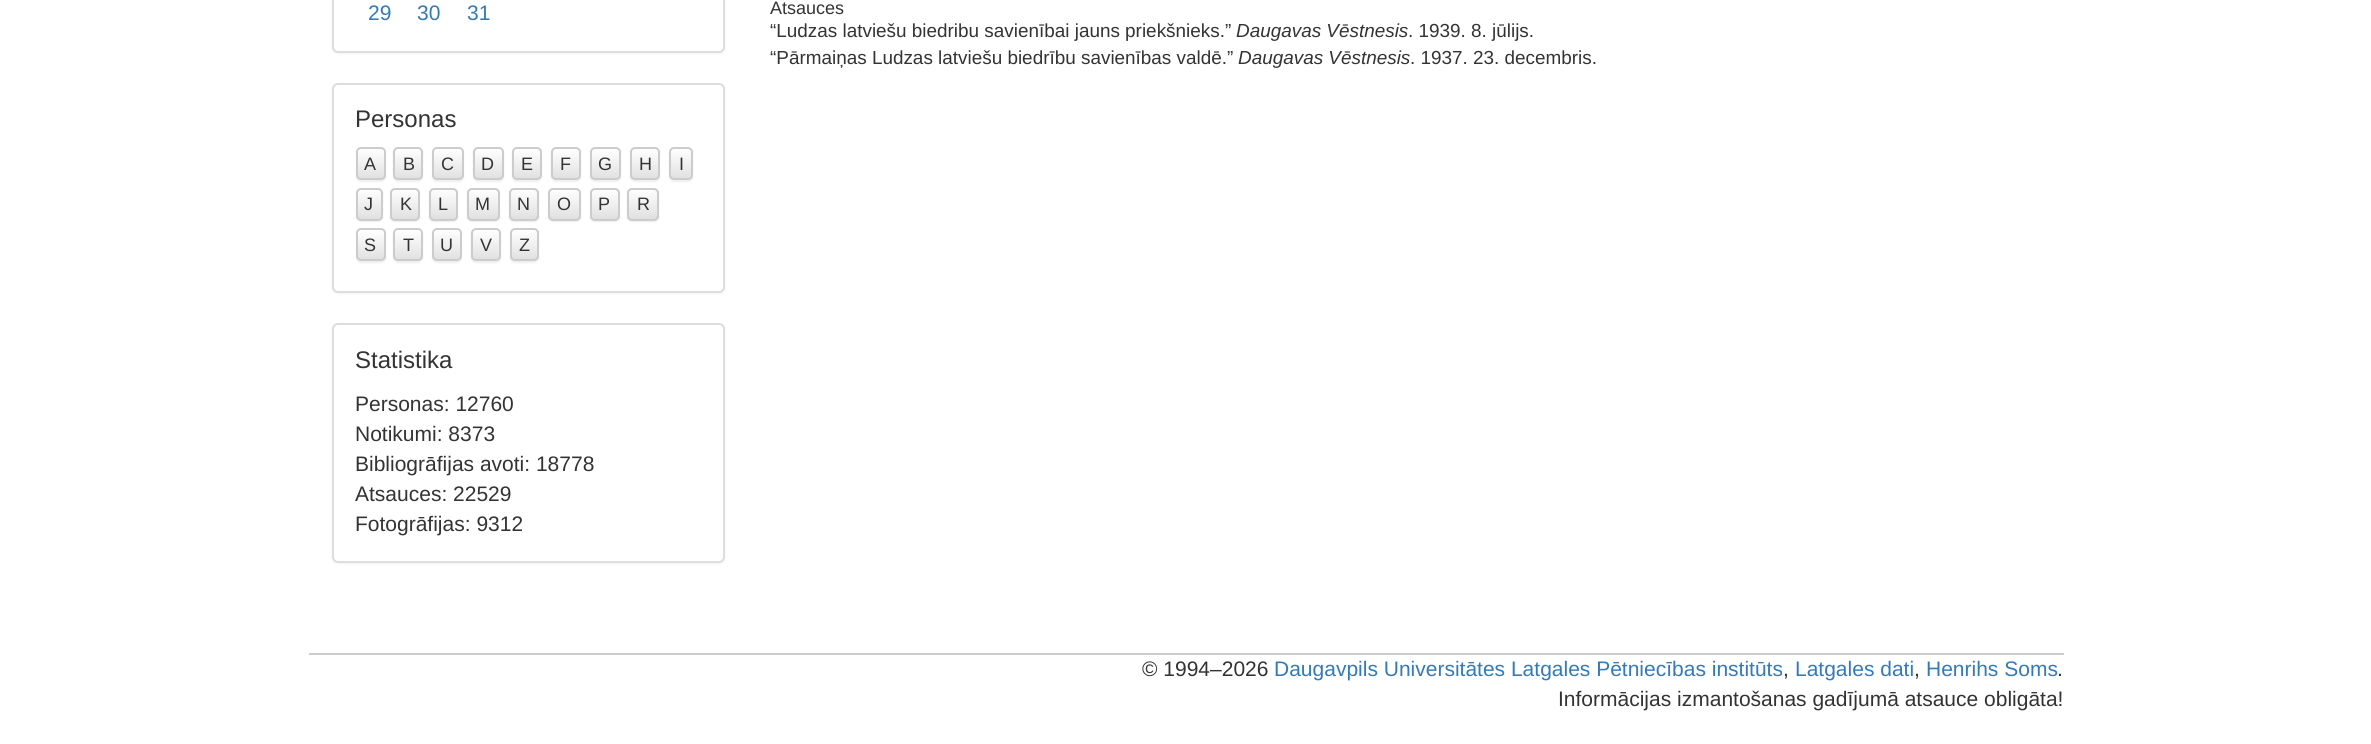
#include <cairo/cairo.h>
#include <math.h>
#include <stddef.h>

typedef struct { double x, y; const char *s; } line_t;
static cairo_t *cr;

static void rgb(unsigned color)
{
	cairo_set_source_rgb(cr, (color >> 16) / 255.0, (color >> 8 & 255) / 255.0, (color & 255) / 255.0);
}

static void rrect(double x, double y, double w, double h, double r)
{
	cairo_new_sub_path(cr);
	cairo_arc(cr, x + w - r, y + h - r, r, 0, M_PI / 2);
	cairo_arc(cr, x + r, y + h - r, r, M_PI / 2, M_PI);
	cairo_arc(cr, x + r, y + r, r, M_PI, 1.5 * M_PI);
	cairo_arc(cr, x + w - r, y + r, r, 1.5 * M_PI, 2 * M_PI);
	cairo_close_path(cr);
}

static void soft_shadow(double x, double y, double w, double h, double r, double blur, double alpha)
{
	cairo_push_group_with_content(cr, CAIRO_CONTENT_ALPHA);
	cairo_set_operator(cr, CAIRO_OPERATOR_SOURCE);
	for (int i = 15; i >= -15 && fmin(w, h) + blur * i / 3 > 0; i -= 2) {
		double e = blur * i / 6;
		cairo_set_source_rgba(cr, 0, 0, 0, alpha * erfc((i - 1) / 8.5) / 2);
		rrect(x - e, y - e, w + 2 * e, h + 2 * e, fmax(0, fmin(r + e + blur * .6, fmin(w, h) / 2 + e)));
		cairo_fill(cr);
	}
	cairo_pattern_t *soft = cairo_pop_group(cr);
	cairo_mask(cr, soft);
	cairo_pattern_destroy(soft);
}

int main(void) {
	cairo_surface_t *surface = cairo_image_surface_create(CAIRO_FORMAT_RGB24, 2371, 744);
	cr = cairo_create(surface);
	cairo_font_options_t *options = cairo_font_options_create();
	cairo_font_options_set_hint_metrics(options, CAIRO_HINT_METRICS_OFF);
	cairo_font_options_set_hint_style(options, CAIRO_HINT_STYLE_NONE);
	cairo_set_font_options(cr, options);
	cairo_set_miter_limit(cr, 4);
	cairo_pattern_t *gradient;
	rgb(0xffffff);
	cairo_paint(cr);
	rgb(0x000000);
	soft_shadow(332, -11, 393, 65, 6, 1.5, 0.05);
	rgb(0xffffff);
	rrect(333, -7, 391, 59, 5);
	cairo_fill_preserve(cr);
	rgb(0xdddddd);
	cairo_stroke(cr);
	rgb(0x000000);
	soft_shadow(332, 84, 393, 210, 6, 1.5, 0.05);
	rgb(0xffffff);
	rrect(333, 84, 391, 208, 5);
	cairo_fill_preserve(cr);
	rgb(0xdddddd);
	cairo_stroke(cr);
	rgb(0x000000);
	soft_shadow(356, 149, 30, 33, 5, 1, 0.07);
	cairo_save(cr);
	rrect(356, 147, 30, 33, 5);
	cairo_clip(cr);
	gradient = cairo_pattern_create_linear(371, 149, 371, 179);
	cairo_pattern_add_color_stop_rgba(gradient, 0, 1, 1, 1, 1);
	cairo_pattern_add_color_stop_rgba(gradient, 1, 0.878, 0.878, 0.878, 1);
	cairo_set_source(cr, gradient);
	cairo_pattern_destroy(gradient);
	cairo_rectangle(cr, 356, 149, 30, 30);
	cairo_fill(cr);
	cairo_restore(cr);
	rrect(357, 148, 28, 31, 4);
	rgb(0xcccccc);
	cairo_stroke(cr);
	rgb(0x000000);
	soft_shadow(393, 149, 30, 33, 5, 1, 0.07);
	cairo_save(cr);
	rrect(393, 147, 30, 33, 5);
	cairo_clip(cr);
	gradient = cairo_pattern_create_linear(408, 149, 408, 179);
	cairo_pattern_add_color_stop_rgba(gradient, 0, 1, 1, 1, 1);
	cairo_pattern_add_color_stop_rgba(gradient, 1, 0.878, 0.878, 0.878, 1);
	cairo_set_source(cr, gradient);
	cairo_pattern_destroy(gradient);
	cairo_rectangle(cr, 393, 149, 30, 30);
	cairo_fill(cr);
	cairo_restore(cr);
	rrect(394, 148, 28, 31, 4);
	rgb(0xcccccc);
	cairo_stroke(cr);
	rgb(0x000000);
	soft_shadow(432, 149, 32, 33, 5, 1, 0.07);
	cairo_save(cr);
	rrect(432, 147, 32, 33, 5);
	cairo_clip(cr);
	gradient = cairo_pattern_create_linear(448, 149, 448, 179);
	cairo_pattern_add_color_stop_rgba(gradient, 0, 1, 1, 1, 1);
	cairo_pattern_add_color_stop_rgba(gradient, 1, 0.878, 0.878, 0.878, 1);
	cairo_set_source(cr, gradient);
	cairo_pattern_destroy(gradient);
	cairo_rectangle(cr, 432, 149, 32, 30);
	cairo_fill(cr);
	cairo_restore(cr);
	rrect(433, 148, 30, 31, 4);
	rgb(0xcccccc);
	cairo_stroke(cr);
	rgb(0x000000);
	soft_shadow(473, 149, 31, 33, 5, 1, 0.07);
	cairo_save(cr);
	rrect(473, 147, 31, 33, 5);
	cairo_clip(cr);
	gradient = cairo_pattern_create_linear(488, 149, 488, 179);
	cairo_pattern_add_color_stop_rgba(gradient, 0, 1, 1, 1, 1);
	cairo_pattern_add_color_stop_rgba(gradient, 1, 0.878, 0.878, 0.878, 1);
	cairo_set_source(cr, gradient);
	cairo_pattern_destroy(gradient);
	cairo_rectangle(cr, 473, 149, 31, 30);
	cairo_fill(cr);
	cairo_restore(cr);
	cairo_set_source_rgba(cr, 1, 1, 1, 0.15);
	cairo_new_path(cr);
	cairo_move_to(cr, 477, 150);
	cairo_line_to(cr, 500.5, 150);
	cairo_curve_to(cr, 503, 150.5, 502, 156, 502, 157);
	cairo_line_to(cr, 502, 178.5);
	cairo_curve_to(cr, 503.5, 177, 503, 174, 503, 172);
	cairo_line_to(cr, 503, 164);
	cairo_curve_to(cr, 503, 146.5, 505.5, 149, 488.5, 149);
	cairo_line_to(cr, 481, 149);
	cairo_curve_to(cr, 477, 149, 474, 148.5, 474, 153);
	cairo_curve_to(cr, 474, 151, 475, 150, 477, 150);
	cairo_close_path(cr);
	cairo_fill(cr);
	rrect(474, 148, 29, 31, 4);
	rgb(0xcccccc);
	cairo_stroke(cr);
	rgb(0x000000);
	soft_shadow(512, 149, 30, 33, 5, 1, 0.07);
	cairo_save(cr);
	rrect(512, 147, 30, 33, 5);
	cairo_clip(cr);
	gradient = cairo_pattern_create_linear(527, 149, 527, 179);
	cairo_pattern_add_color_stop_rgba(gradient, 0, 1, 1, 1, 1);
	cairo_pattern_add_color_stop_rgba(gradient, 1, 0.878, 0.878, 0.878, 1);
	cairo_set_source(cr, gradient);
	cairo_pattern_destroy(gradient);
	cairo_rectangle(cr, 512, 149, 30, 30);
	cairo_fill(cr);
	cairo_restore(cr);
	rrect(513, 148, 28, 31, 4);
	rgb(0xcccccc);
	cairo_stroke(cr);
	rgb(0x000000);
	soft_shadow(551, 149, 30, 33, 5, 1, 0.07);
	cairo_save(cr);
	rrect(551, 147, 30, 33, 5);
	cairo_clip(cr);
	gradient = cairo_pattern_create_linear(566, 149, 566, 179);
	cairo_pattern_add_color_stop_rgba(gradient, 0, 1, 1, 1, 1);
	cairo_pattern_add_color_stop_rgba(gradient, 1, 0.878, 0.878, 0.878, 1);
	cairo_set_source(cr, gradient);
	cairo_pattern_destroy(gradient);
	cairo_rectangle(cr, 551, 149, 30, 30);
	cairo_fill(cr);
	cairo_restore(cr);
	rrect(552, 148, 28, 31, 4);
	rgb(0xcccccc);
	cairo_stroke(cr);
	rgb(0x000000);
	soft_shadow(590, 149, 31, 33, 5, 1, 0.07);
	cairo_save(cr);
	rrect(590, 147, 31, 33, 5);
	cairo_clip(cr);
	gradient = cairo_pattern_create_linear(605, 149, 605, 179);
	cairo_pattern_add_color_stop_rgba(gradient, 0, 1, 1, 1, 1);
	cairo_pattern_add_color_stop_rgba(gradient, 1, 0.878, 0.878, 0.878, 1);
	cairo_set_source(cr, gradient);
	cairo_pattern_destroy(gradient);
	cairo_rectangle(cr, 590, 149, 31, 30);
	cairo_fill(cr);
	cairo_restore(cr);
	rrect(591, 148, 29, 31, 4);
	rgb(0xcccccc);
	cairo_stroke(cr);
	rgb(0x000000);
	soft_shadow(630, 149, 30, 33, 5, 1, 0.07);
	cairo_save(cr);
	rrect(630, 147, 30, 33, 5);
	cairo_clip(cr);
	gradient = cairo_pattern_create_linear(645, 149, 645, 179);
	cairo_pattern_add_color_stop_rgba(gradient, 0, 1, 1, 1, 1);
	cairo_pattern_add_color_stop_rgba(gradient, 1, 0.878, 0.878, 0.878, 1);
	cairo_set_source(cr, gradient);
	cairo_pattern_destroy(gradient);
	cairo_rectangle(cr, 630, 149, 30, 30);
	cairo_fill(cr);
	cairo_restore(cr);
	cairo_set_source_rgba(cr, 1, 1, 1, 0.15);
	cairo_new_path(cr);
	cairo_move_to(cr, 634, 150);
	cairo_line_to(cr, 656.5, 150);
	cairo_curve_to(cr, 659, 150.5, 658, 156, 658, 157);
	cairo_line_to(cr, 658, 178.5);
	cairo_curve_to(cr, 659.5, 177, 659, 174, 659, 172);
	cairo_line_to(cr, 659, 164);
	cairo_curve_to(cr, 659, 147, 662, 149, 645.5, 149);
	cairo_line_to(cr, 638.5, 149);
	cairo_curve_to(cr, 634.5, 149, 632, 148.5, 632, 153);
	cairo_curve_to(cr, 632, 151, 633, 150, 634, 150);
	cairo_close_path(cr);
	cairo_fill(cr);
	rrect(631, 148, 28, 31, 4);
	rgb(0xcccccc);
	cairo_stroke(cr);
	rgb(0x000000);
	soft_shadow(669, 149, 24, 33, 5, 1, 0.07);
	cairo_save(cr);
	rrect(669, 147, 24, 33, 5);
	cairo_clip(cr);
	gradient = cairo_pattern_create_linear(681, 149, 681, 179);
	cairo_pattern_add_color_stop_rgba(gradient, 0, 1, 1, 1, 1);
	cairo_pattern_add_color_stop_rgba(gradient, 1, 0.878, 0.878, 0.878, 1);
	cairo_set_source(cr, gradient);
	cairo_pattern_destroy(gradient);
	cairo_rectangle(cr, 669, 149, 24, 30);
	cairo_fill(cr);
	cairo_restore(cr);
	rrect(670, 148, 22, 31, 4);
	rgb(0xcccccc);
	cairo_stroke(cr);
	rgb(0x000000);
	soft_shadow(356, 189, 27, 33, 5, 1, 0.07);
	cairo_save(cr);
	rrect(356, 188, 27, 33, 5);
	cairo_clip(cr);
	gradient = cairo_pattern_create_linear(369, 189, 369, 219);
	cairo_pattern_add_color_stop_rgba(gradient, 0, 1, 1, 1, 1);
	cairo_pattern_add_color_stop_rgba(gradient, 1, 0.878, 0.878, 0.878, 1);
	cairo_set_source(cr, gradient);
	cairo_pattern_destroy(gradient);
	cairo_rectangle(cr, 356, 189, 27, 30);
	cairo_fill(cr);
	cairo_restore(cr);
	rrect(357, 189, 25, 31, 4);
	rgb(0xcccccc);
	cairo_stroke(cr);
	rgb(0x000000);
	soft_shadow(390, 189, 30, 33, 5, 1, 0.07);
	cairo_save(cr);
	rrect(390, 188, 30, 33, 5);
	cairo_clip(cr);
	gradient = cairo_pattern_create_linear(405, 189, 405, 219);
	cairo_pattern_add_color_stop_rgba(gradient, 0, 1, 1, 1, 1);
	cairo_pattern_add_color_stop_rgba(gradient, 1, 0.878, 0.878, 0.878, 1);
	cairo_set_source(cr, gradient);
	cairo_pattern_destroy(gradient);
	cairo_rectangle(cr, 390, 189, 30, 30);
	cairo_fill(cr);
	cairo_restore(cr);
	rrect(391, 189, 28, 31, 4);
	rgb(0xcccccc);
	cairo_stroke(cr);
	rgb(0x000000);
	soft_shadow(429, 189, 29, 33, 5, 1, 0.07);
	cairo_save(cr);
	rrect(429, 188, 29, 33, 5);
	cairo_clip(cr);
	gradient = cairo_pattern_create_linear(443, 189, 443, 219);
	cairo_pattern_add_color_stop_rgba(gradient, 0, 1, 1, 1, 1);
	cairo_pattern_add_color_stop_rgba(gradient, 1, 0.878, 0.878, 0.878, 1);
	cairo_set_source(cr, gradient);
	cairo_pattern_destroy(gradient);
	cairo_rectangle(cr, 429, 189, 29, 30);
	cairo_fill(cr);
	cairo_restore(cr);
	rrect(430, 189, 27, 31, 4);
	rgb(0xcccccc);
	cairo_stroke(cr);
	rgb(0x000000);
	soft_shadow(467, 189, 33, 33, 5, 1, 0.07);
	cairo_save(cr);
	rrect(467, 188, 33, 33, 5);
	cairo_clip(cr);
	gradient = cairo_pattern_create_linear(483, 189, 483, 219);
	cairo_pattern_add_color_stop_rgba(gradient, 0, 1, 1, 1, 1);
	cairo_pattern_add_color_stop_rgba(gradient, 1, 0.878, 0.878, 0.878, 1);
	cairo_set_source(cr, gradient);
	cairo_pattern_destroy(gradient);
	cairo_rectangle(cr, 467, 189, 33, 30);
	cairo_fill(cr);
	cairo_restore(cr);
	rrect(468, 189, 31, 31, 4);
	rgb(0xcccccc);
	cairo_stroke(cr);
	rgb(0x000000);
	soft_shadow(509, 189, 30, 33, 5, 1, 0.07);
	cairo_save(cr);
	rrect(509, 188, 30, 33, 5);
	cairo_clip(cr);
	gradient = cairo_pattern_create_linear(524, 189, 524, 219);
	cairo_pattern_add_color_stop_rgba(gradient, 0, 1, 1, 1, 1);
	cairo_pattern_add_color_stop_rgba(gradient, 1, 0.878, 0.878, 0.878, 1);
	cairo_set_source(cr, gradient);
	cairo_pattern_destroy(gradient);
	cairo_rectangle(cr, 509, 189, 30, 30);
	cairo_fill(cr);
	cairo_restore(cr);
	rrect(510, 189, 28, 31, 4);
	rgb(0xcccccc);
	cairo_stroke(cr);
	rgb(0x000000);
	soft_shadow(548, 189, 33, 33, 5, 1, 0.07);
	cairo_save(cr);
	rrect(548, 188, 33, 33, 5);
	cairo_clip(cr);
	gradient = cairo_pattern_create_linear(564, 189, 564, 219);
	cairo_pattern_add_color_stop_rgba(gradient, 0, 1, 1, 1, 1);
	cairo_pattern_add_color_stop_rgba(gradient, 1, 0.878, 0.878, 0.878, 1);
	cairo_set_source(cr, gradient);
	cairo_pattern_destroy(gradient);
	cairo_rectangle(cr, 548, 189, 33, 30);
	cairo_fill(cr);
	cairo_restore(cr);
	rrect(549, 189, 31, 31, 4);
	rgb(0xcccccc);
	cairo_stroke(cr);
	rgb(0x000000);
	soft_shadow(590, 189, 30, 33, 5, 1, 0.07);
	cairo_save(cr);
	rrect(590, 188, 30, 33, 5);
	cairo_clip(cr);
	gradient = cairo_pattern_create_linear(605, 189, 605, 219);
	cairo_pattern_add_color_stop_rgba(gradient, 0, 1, 1, 1, 1);
	cairo_pattern_add_color_stop_rgba(gradient, 1, 0.878, 0.878, 0.878, 1);
	cairo_set_source(cr, gradient);
	cairo_pattern_destroy(gradient);
	cairo_rectangle(cr, 590, 189, 30, 30);
	cairo_fill(cr);
	cairo_restore(cr);
	rrect(591, 189, 28, 31, 4);
	rgb(0xcccccc);
	cairo_stroke(cr);
	rgb(0x000000);
	soft_shadow(627, 189, 32, 33, 5, 1, 0.07);
	cairo_save(cr);
	rrect(627, 188, 32, 33, 5);
	cairo_clip(cr);
	gradient = cairo_pattern_create_linear(643, 189, 643, 219);
	cairo_pattern_add_color_stop_rgba(gradient, 0, 1, 1, 1, 1);
	cairo_pattern_add_color_stop_rgba(gradient, 1, 0.878, 0.878, 0.878, 1);
	cairo_set_source(cr, gradient);
	cairo_pattern_destroy(gradient);
	cairo_rectangle(cr, 627, 189, 32, 30);
	cairo_fill(cr);
	cairo_restore(cr);
	rrect(628, 189, 30, 31, 4);
	rgb(0xcccccc);
	cairo_stroke(cr);
	rgb(0x000000);
	soft_shadow(356, 230, 30, 33, 5, 1, 0.07);
	cairo_save(cr);
	rrect(356, 228, 30, 33, 5);
	cairo_clip(cr);
	gradient = cairo_pattern_create_linear(371, 230, 371, 260);
	cairo_pattern_add_color_stop_rgba(gradient, 0, 1, 1, 1, 1);
	cairo_pattern_add_color_stop_rgba(gradient, 1, 0.878, 0.878, 0.878, 1);
	cairo_set_source(cr, gradient);
	cairo_pattern_destroy(gradient);
	cairo_rectangle(cr, 356, 230, 30, 30);
	cairo_fill(cr);
	cairo_restore(cr);
	rrect(357, 229, 28, 31, 4);
	rgb(0xcccccc);
	cairo_stroke(cr);
	rgb(0x000000);
	soft_shadow(393, 230, 30, 33, 5, 1, 0.07);
	cairo_save(cr);
	rrect(393, 228, 30, 33, 5);
	cairo_clip(cr);
	gradient = cairo_pattern_create_linear(408, 230, 408, 260);
	cairo_pattern_add_color_stop_rgba(gradient, 0, 1, 1, 1, 1);
	cairo_pattern_add_color_stop_rgba(gradient, 1, 0.878, 0.878, 0.878, 1);
	cairo_set_source(cr, gradient);
	cairo_pattern_destroy(gradient);
	cairo_rectangle(cr, 393, 230, 30, 30);
	cairo_fill(cr);
	cairo_restore(cr);
	rrect(394, 229, 28, 31, 4);
	rgb(0xcccccc);
	cairo_stroke(cr);
	rgb(0x000000);
	soft_shadow(432, 230, 30, 33, 5, 1, 0.07);
	cairo_save(cr);
	rrect(432, 228, 30, 33, 5);
	cairo_clip(cr);
	gradient = cairo_pattern_create_linear(447, 230, 447, 260);
	cairo_pattern_add_color_stop_rgba(gradient, 0, 1, 1, 1, 1);
	cairo_pattern_add_color_stop_rgba(gradient, 1, 0.878, 0.878, 0.878, 1);
	cairo_set_source(cr, gradient);
	cairo_pattern_destroy(gradient);
	cairo_rectangle(cr, 432, 230, 30, 30);
	cairo_fill(cr);
	cairo_restore(cr);
	cairo_set_source_rgba(cr, 1, 1, 1, 0.15);
	cairo_new_path(cr);
	cairo_move_to(cr, 436, 231);
	cairo_line_to(cr, 458.5, 231);
	cairo_curve_to(cr, 461, 231.5, 460, 237, 460, 238);
	cairo_line_to(cr, 460, 259.5);
	cairo_curve_to(cr, 461.5, 258, 461, 255, 461, 253);
	cairo_line_to(cr, 461, 245);
	cairo_curve_to(cr, 461, 228, 464, 230, 447.5, 230);
	cairo_line_to(cr, 440.5, 230);
	cairo_curve_to(cr, 436.5, 230, 434, 229.5, 434, 234);
	cairo_curve_to(cr, 434, 232, 435, 231, 436, 231);
	cairo_close_path(cr);
	cairo_fill(cr);
	rrect(433, 229, 28, 31, 4);
	rgb(0xcccccc);
	cairo_stroke(cr);
	rgb(0x000000);
	soft_shadow(471, 230, 30, 33, 5, 1, 0.07);
	cairo_save(cr);
	rrect(471, 228, 30, 33, 5);
	cairo_clip(cr);
	gradient = cairo_pattern_create_linear(486, 230, 486, 260);
	cairo_pattern_add_color_stop_rgba(gradient, 0, 1, 1, 1, 1);
	cairo_pattern_add_color_stop_rgba(gradient, 1, 0.878, 0.878, 0.878, 1);
	cairo_set_source(cr, gradient);
	cairo_pattern_destroy(gradient);
	cairo_rectangle(cr, 471, 230, 30, 30);
	cairo_fill(cr);
	cairo_restore(cr);
	rrect(472, 229, 28, 31, 4);
	rgb(0xcccccc);
	cairo_stroke(cr);
	rgb(0x000000);
	soft_shadow(510, 230, 29, 33, 5, 1, 0.07);
	cairo_save(cr);
	rrect(510, 228, 29, 33, 5);
	cairo_clip(cr);
	gradient = cairo_pattern_create_linear(524, 230, 524, 260);
	cairo_pattern_add_color_stop_rgba(gradient, 0, 1, 1, 1, 1);
	cairo_pattern_add_color_stop_rgba(gradient, 1, 0.878, 0.878, 0.878, 1);
	cairo_set_source(cr, gradient);
	cairo_pattern_destroy(gradient);
	cairo_rectangle(cr, 510, 230, 29, 30);
	cairo_fill(cr);
	cairo_restore(cr);
	rrect(511, 229, 27, 31, 4);
	rgb(0xcccccc);
	cairo_stroke(cr);
	rgb(0x000000);
	soft_shadow(332, 324, 393, 240, 6, 1.5, 0.05);
	rgb(0xffffff);
	rrect(333, 324, 391, 238, 5);
	cairo_fill_preserve(cr);
	rgb(0xdddddd);
	cairo_stroke(cr);
	rgb(0xcccccc);
	cairo_rectangle(cr, 309, 653, 1755, 2);
	cairo_fill(cr);
	cairo_select_font_face(cr, "Liberation Sans", CAIRO_FONT_SLANT_NORMAL, CAIRO_FONT_WEIGHT_NORMAL);
	cairo_set_font_size(cr, 21);
	rgb(0x337ab7);
	{
		static const line_t items[] = {
			{368, 20, "29"},
			{417, 20, "30"},
			{467, 20, "31"},
		};
		for (size_t i = 0; i < sizeof items / sizeof *items; i++) {
			cairo_move_to(cr, items[i].x, items[i].y);
			cairo_show_text(cr, items[i].s);
		}
	}
	cairo_set_font_size(cr, 24);
	rgb(0x333333);
	cairo_move_to(cr, 355, 127);
	cairo_show_text(cr, "Personas");
	cairo_set_font_size(cr, 18);
	{
		static const line_t items[] = {
			{364, 170, "A"},
			{403, 170, "B"},
			{441, 170, "C"},
			{481, 170, "D"},
			{521, 170, "E"},
			{560, 170, "F"},
			{598, 170, "G"},
			{639, 170, "H"},
			{679, 170, "I"},
			{364, 210, "J"},
			{400, 210, "K"},
			{438, 210, "L"},
			{475, 210, "M"},
			{517, 210, "N"},
			{557, 210, "O"},
			{598, 210, "P"},
			{637, 210, "R"},
			{364, 251, "S"},
			{403, 251, "T"},
			{440, 251, "U"},
			{480, 251, "V"},
			{519, 251, "Z"},
		};
		for (size_t i = 0; i < sizeof items / sizeof *items; i++) {
			cairo_move_to(cr, items[i].x, items[i].y);
			cairo_show_text(cr, items[i].s);
		}
	}
	cairo_set_font_size(cr, 24);
	cairo_move_to(cr, 355, 368);
	cairo_show_text(cr, "Statistika");
	cairo_set_font_size(cr, 21);
	{
		static const line_t items[] = {
			{355, 411, "Personas: 12760"},
			{355, 441, "Notikumi: 8373"},
			{355, 471, "Bibliogrāfijas avoti: 18778"},
			{355, 501, "Atsauces: 22529"},
			{355, 531, "Fotogrāfijas: 9312"},
		};
		for (size_t i = 0; i < sizeof items / sizeof *items; i++) {
			cairo_move_to(cr, items[i].x, items[i].y);
			cairo_show_text(cr, items[i].s);
		}
	}
	cairo_set_font_size(cr, 18);
	cairo_move_to(cr, 770, 14);
	cairo_show_text(cr, "Atsauces");
	cairo_set_font_size(cr, 18.9);
	cairo_move_to(cr, 770, 37);
	cairo_show_text(cr, "“Ludzas latviešu biedribu savienībai jauns priekšnieks.”");
	cairo_select_font_face(cr, "Liberation Sans", CAIRO_FONT_SLANT_ITALIC, CAIRO_FONT_WEIGHT_NORMAL);
	cairo_move_to(cr, 1236, 37);
	cairo_show_text(cr, "Daugavas Vēstnesis");
	cairo_select_font_face(cr, "Liberation Sans", CAIRO_FONT_SLANT_NORMAL, CAIRO_FONT_WEIGHT_NORMAL);
	cairo_move_to(cr, 1408, 37);
	cairo_show_text(cr, ". 1939. 8. jūlijs.");
	cairo_move_to(cr, 770, 64);
	cairo_show_text(cr, "“Pārmaiņas Ludzas latviešu biedrību savienības valdē.”");
	cairo_select_font_face(cr, "Liberation Sans", CAIRO_FONT_SLANT_ITALIC, CAIRO_FONT_WEIGHT_NORMAL);
	cairo_move_to(cr, 1238, 64);
	cairo_show_text(cr, "Daugavas Vēstnesis");
	cairo_select_font_face(cr, "Liberation Sans", CAIRO_FONT_SLANT_NORMAL, CAIRO_FONT_WEIGHT_NORMAL);
	cairo_move_to(cr, 1410, 64);
	cairo_show_text(cr, ". 1937. 23. decembris.");
	cairo_set_font_size(cr, 21);
	cairo_move_to(cr, 1142, 676);
	cairo_show_text(cr, "© 1994–2026");
	rgb(0x337ab7);
	cairo_move_to(cr, 1274, 676);
	cairo_show_text(cr, "Daugavpils Universitātes Latgales Pētniecības institūts");
	rgb(0x333333);
	cairo_move_to(cr, 1783, 676);
	cairo_show_text(cr, ",");
	rgb(0x337ab7);
	cairo_move_to(cr, 1795, 676);
	cairo_show_text(cr, "Latgales dati");
	rgb(0x333333);
	cairo_move_to(cr, 1914, 676);
	cairo_show_text(cr, ",");
	rgb(0x337ab7);
	cairo_move_to(cr, 1926, 676);
	cairo_show_text(cr, "Henrihs Soms");
	rgb(0x333333);
	cairo_move_to(cr, 2057, 676);
	cairo_show_text(cr, ".");
	cairo_move_to(cr, 1558, 706);
	cairo_show_text(cr, "Informācijas izmantošanas gadījumā atsauce obligāta!");
	cairo_surface_write_to_png(surface, "page.png");
	cairo_font_options_destroy(options);
	cairo_destroy(cr);
	cairo_surface_destroy(surface);
	return 0;
}
